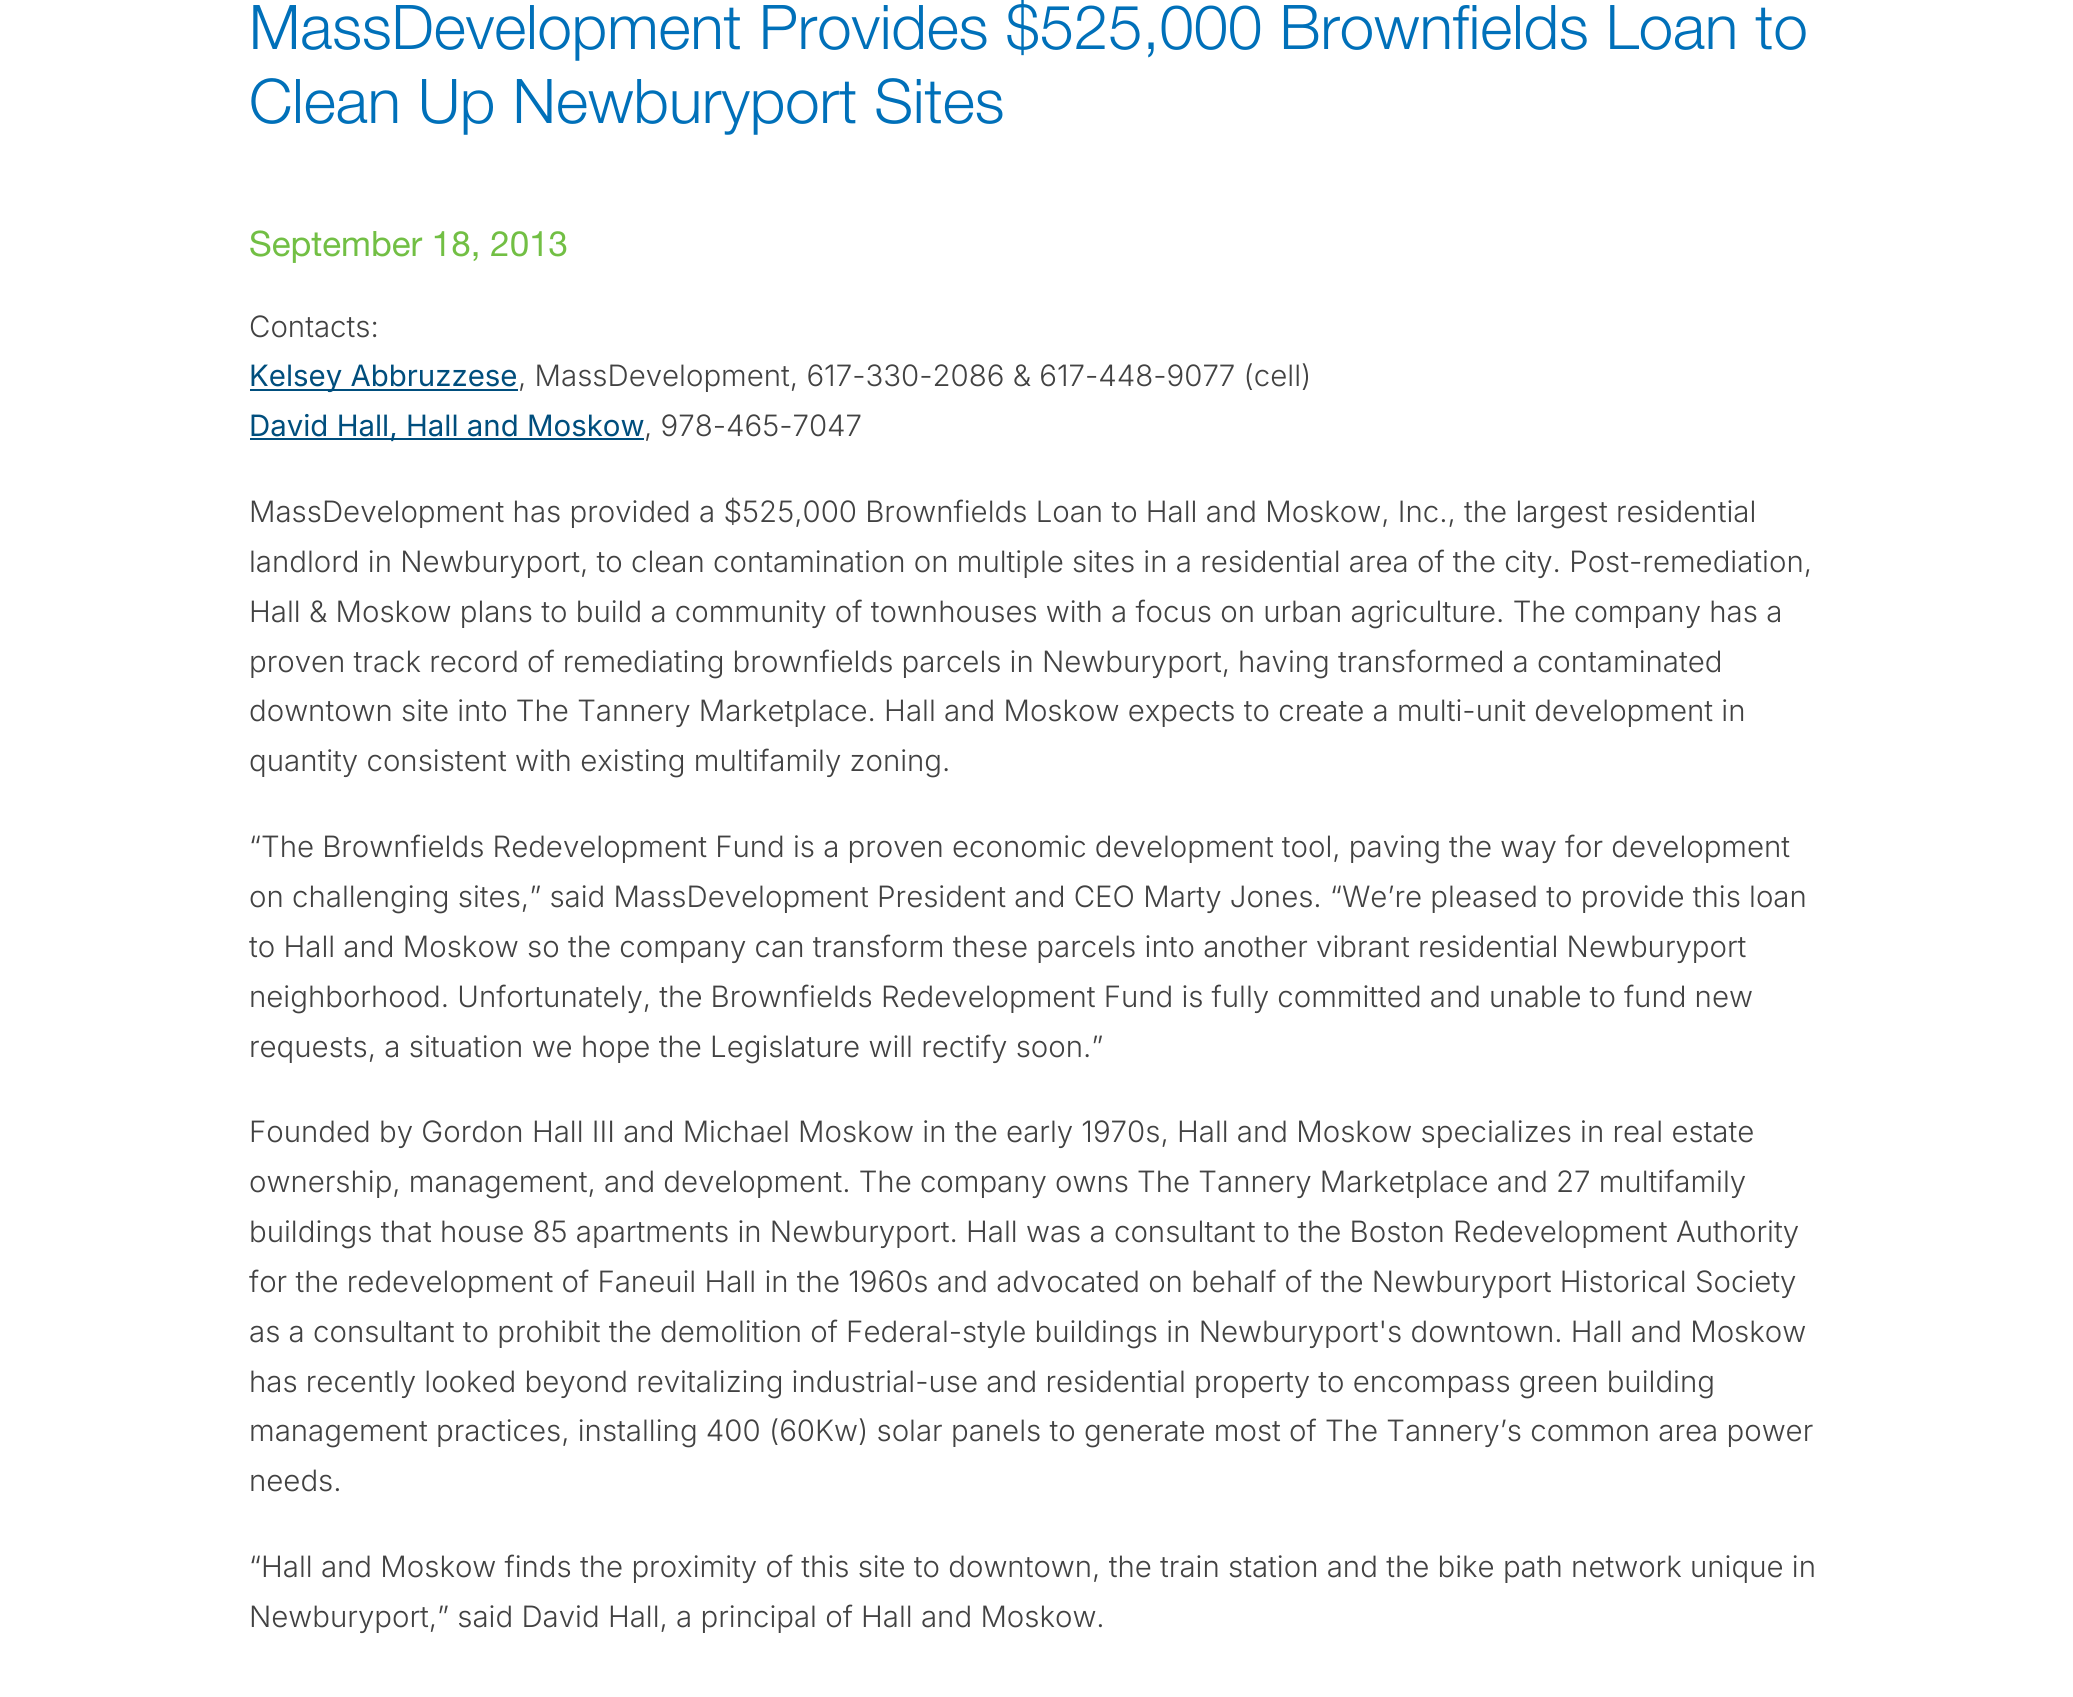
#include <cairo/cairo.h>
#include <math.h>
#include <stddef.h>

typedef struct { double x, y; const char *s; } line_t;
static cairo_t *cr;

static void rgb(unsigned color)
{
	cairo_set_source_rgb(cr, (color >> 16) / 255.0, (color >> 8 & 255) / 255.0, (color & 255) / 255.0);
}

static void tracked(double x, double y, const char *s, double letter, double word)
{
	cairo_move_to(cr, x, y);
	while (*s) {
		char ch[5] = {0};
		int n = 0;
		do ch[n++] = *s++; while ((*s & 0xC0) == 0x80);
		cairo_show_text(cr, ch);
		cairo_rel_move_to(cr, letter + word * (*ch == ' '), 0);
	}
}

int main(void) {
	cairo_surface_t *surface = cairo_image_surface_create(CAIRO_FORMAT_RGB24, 2073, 1697);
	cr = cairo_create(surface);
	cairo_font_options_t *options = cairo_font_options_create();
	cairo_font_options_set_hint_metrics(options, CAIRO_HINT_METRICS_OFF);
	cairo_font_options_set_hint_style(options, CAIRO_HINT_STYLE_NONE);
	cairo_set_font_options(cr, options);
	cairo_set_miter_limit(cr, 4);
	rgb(0xffffff);
	cairo_paint(cr);
	rgb(0x004e7d);
	cairo_rectangle(cr, 250, 389, 268, 2);
	cairo_fill(cr);
	cairo_rectangle(cr, 250, 438, 394, 2);
	cairo_fill(cr);
	cairo_select_font_face(cr, "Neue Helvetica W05 Light", CAIRO_FONT_SLANT_NORMAL, CAIRO_FONT_WEIGHT_NORMAL);
	cairo_set_font_size(cr, 61.6);
	rgb(0x0070b9);
	cairo_move_to(cr, 249, 49);
	cairo_show_text(cr, "MassDevelopment Provides $525,000 Brownfields Loan to");
	cairo_move_to(cr, 249, 123);
	cairo_show_text(cr, "Clean Up Newburyport Sites");
	cairo_select_font_face(cr, "Neue Helvetica W05", CAIRO_FONT_SLANT_NORMAL, CAIRO_FONT_WEIGHT_NORMAL);
	cairo_set_font_size(cr, 35);
	rgb(0x72bf44);
	cairo_move_to(cr, 249, 256);
	cairo_show_text(cr, "September 18, 2013");
	cairo_select_font_face(cr, "Inter Light", CAIRO_FONT_SLANT_NORMAL, CAIRO_FONT_WEIGHT_NORMAL);
	cairo_set_font_size(cr, 29.4);
	rgb(0x424242);
	cairo_move_to(cr, 249, 337);
	cairo_show_text(cr, "Contacts:");
	cairo_select_font_face(cr, "Inter", CAIRO_FONT_SLANT_NORMAL, CAIRO_FONT_WEIGHT_NORMAL);
	rgb(0x004e7d);
	cairo_move_to(cr, 249, 386);
	cairo_show_text(cr, "Kelsey Abbruzzese");
	cairo_select_font_face(cr, "Inter Light", CAIRO_FONT_SLANT_NORMAL, CAIRO_FONT_WEIGHT_NORMAL);
	rgb(0x424242);
	cairo_move_to(cr, 518, 386);
	cairo_show_text(cr, ", MassDevelopment, 617-330-2086 & 617-448-9077 (cell)");
	cairo_select_font_face(cr, "Inter", CAIRO_FONT_SLANT_NORMAL, CAIRO_FONT_WEIGHT_NORMAL);
	rgb(0x004e7d);
	cairo_move_to(cr, 249, 436);
	cairo_show_text(cr, "David Hall, Hall and Moskow");
	cairo_select_font_face(cr, "Inter Light", CAIRO_FONT_SLANT_NORMAL, CAIRO_FONT_WEIGHT_NORMAL);
	rgb(0x424242);
	{
		static const line_t items[] = {
			{644, 436, ", 978-465-7047"},
			{249, 522, "MassDevelopment has provided a $525,000 Brownfields Loan to Hall and Moskow, Inc., the largest residential"},
			{249, 572, "landlord in Newburyport, to clean contamination on multiple sites in a residential area of the city. Post-remediation,"},
			{249, 622, "Hall & Moskow plans to build a community of townhouses with a focus on urban agriculture. The company has a"},
		};
		for (size_t i = 0; i < sizeof items / sizeof *items; i++) {
			cairo_move_to(cr, items[i].x, items[i].y);
			cairo_show_text(cr, items[i].s);
		}
	}
	tracked(249, 672, "proven track record of remediating brownfields parcels in Newburyport, having transformed a contaminated", 0, -0.1);
	cairo_move_to(cr, 249, 721);
	cairo_show_text(cr, "downtown site into The Tannery Marketplace. Hall and Moskow expects to create a multi-unit development in");
	cairo_move_to(cr, 249, 771);
	cairo_show_text(cr, "quantity consistent with existing multifamily zoning.");
	tracked(249, 857, "“The Brownfields Redevelopment Fund is a proven economic development tool, paving the way for development", 0, -0.1);
	cairo_move_to(cr, 249, 907);
	cairo_show_text(cr, "on challenging sites,” said MassDevelopment President and CEO Marty Jones. “We’re pleased to provide this loan");
	cairo_move_to(cr, 249, 957);
	cairo_show_text(cr, "to Hall and Moskow so the company can transform these parcels into another vibrant residential Newburyport");
	tracked(249, 1007, "neighborhood. Unfortunately, the Brownfields Redevelopment Fund is fully committed and unable to fund new", 0, -0.1);
	cairo_move_to(cr, 249, 1057);
	cairo_show_text(cr, "requests, a situation we hope the Legislature will rectify soon.”");
	cairo_move_to(cr, 249, 1142);
	cairo_show_text(cr, "Founded by Gordon Hall III and Michael Moskow in the early 1970s, Hall and Moskow specializes in real estate");
	tracked(249, 1192, "ownership, management, and development. The company owns The Tannery Marketplace and 27 multifamily", 0, -0.1);
	{
		static const line_t items[] = {
			{249, 1242, "buildings that house 85 apartments in Newburyport. Hall was a consultant to the Boston Redevelopment Authority"},
			{249, 1292, "for the redevelopment of Faneuil Hall in the 1960s and advocated on behalf of the Newburyport Historical Society"},
			{249, 1342, "as a consultant to prohibit the demolition of Federal-style buildings in Newburyport's downtown. Hall and Moskow"},
		};
		for (size_t i = 0; i < sizeof items / sizeof *items; i++) {
			cairo_move_to(cr, items[i].x, items[i].y);
			cairo_show_text(cr, items[i].s);
		}
	}
	tracked(249, 1392, "has recently looked beyond revitalizing industrial-use and residential property to encompass green building", 0, -0.1);
	{
		static const line_t items[] = {
			{249, 1441, "management practices, installing 400 (60Kw) solar panels to generate most of The Tannery’s common area power"},
			{249, 1491, "needs."},
			{249, 1577, "“Hall and Moskow finds the proximity of this site to downtown, the train station and the bike path network unique in"},
			{249, 1627, "Newburyport,” said David Hall, a principal of Hall and Moskow."},
		};
		for (size_t i = 0; i < sizeof items / sizeof *items; i++) {
			cairo_move_to(cr, items[i].x, items[i].y);
			cairo_show_text(cr, items[i].s);
		}
	}
	cairo_surface_write_to_png(surface, "page.png");
	cairo_font_options_destroy(options);
	cairo_destroy(cr);
	cairo_surface_destroy(surface);
	return 0;
}
